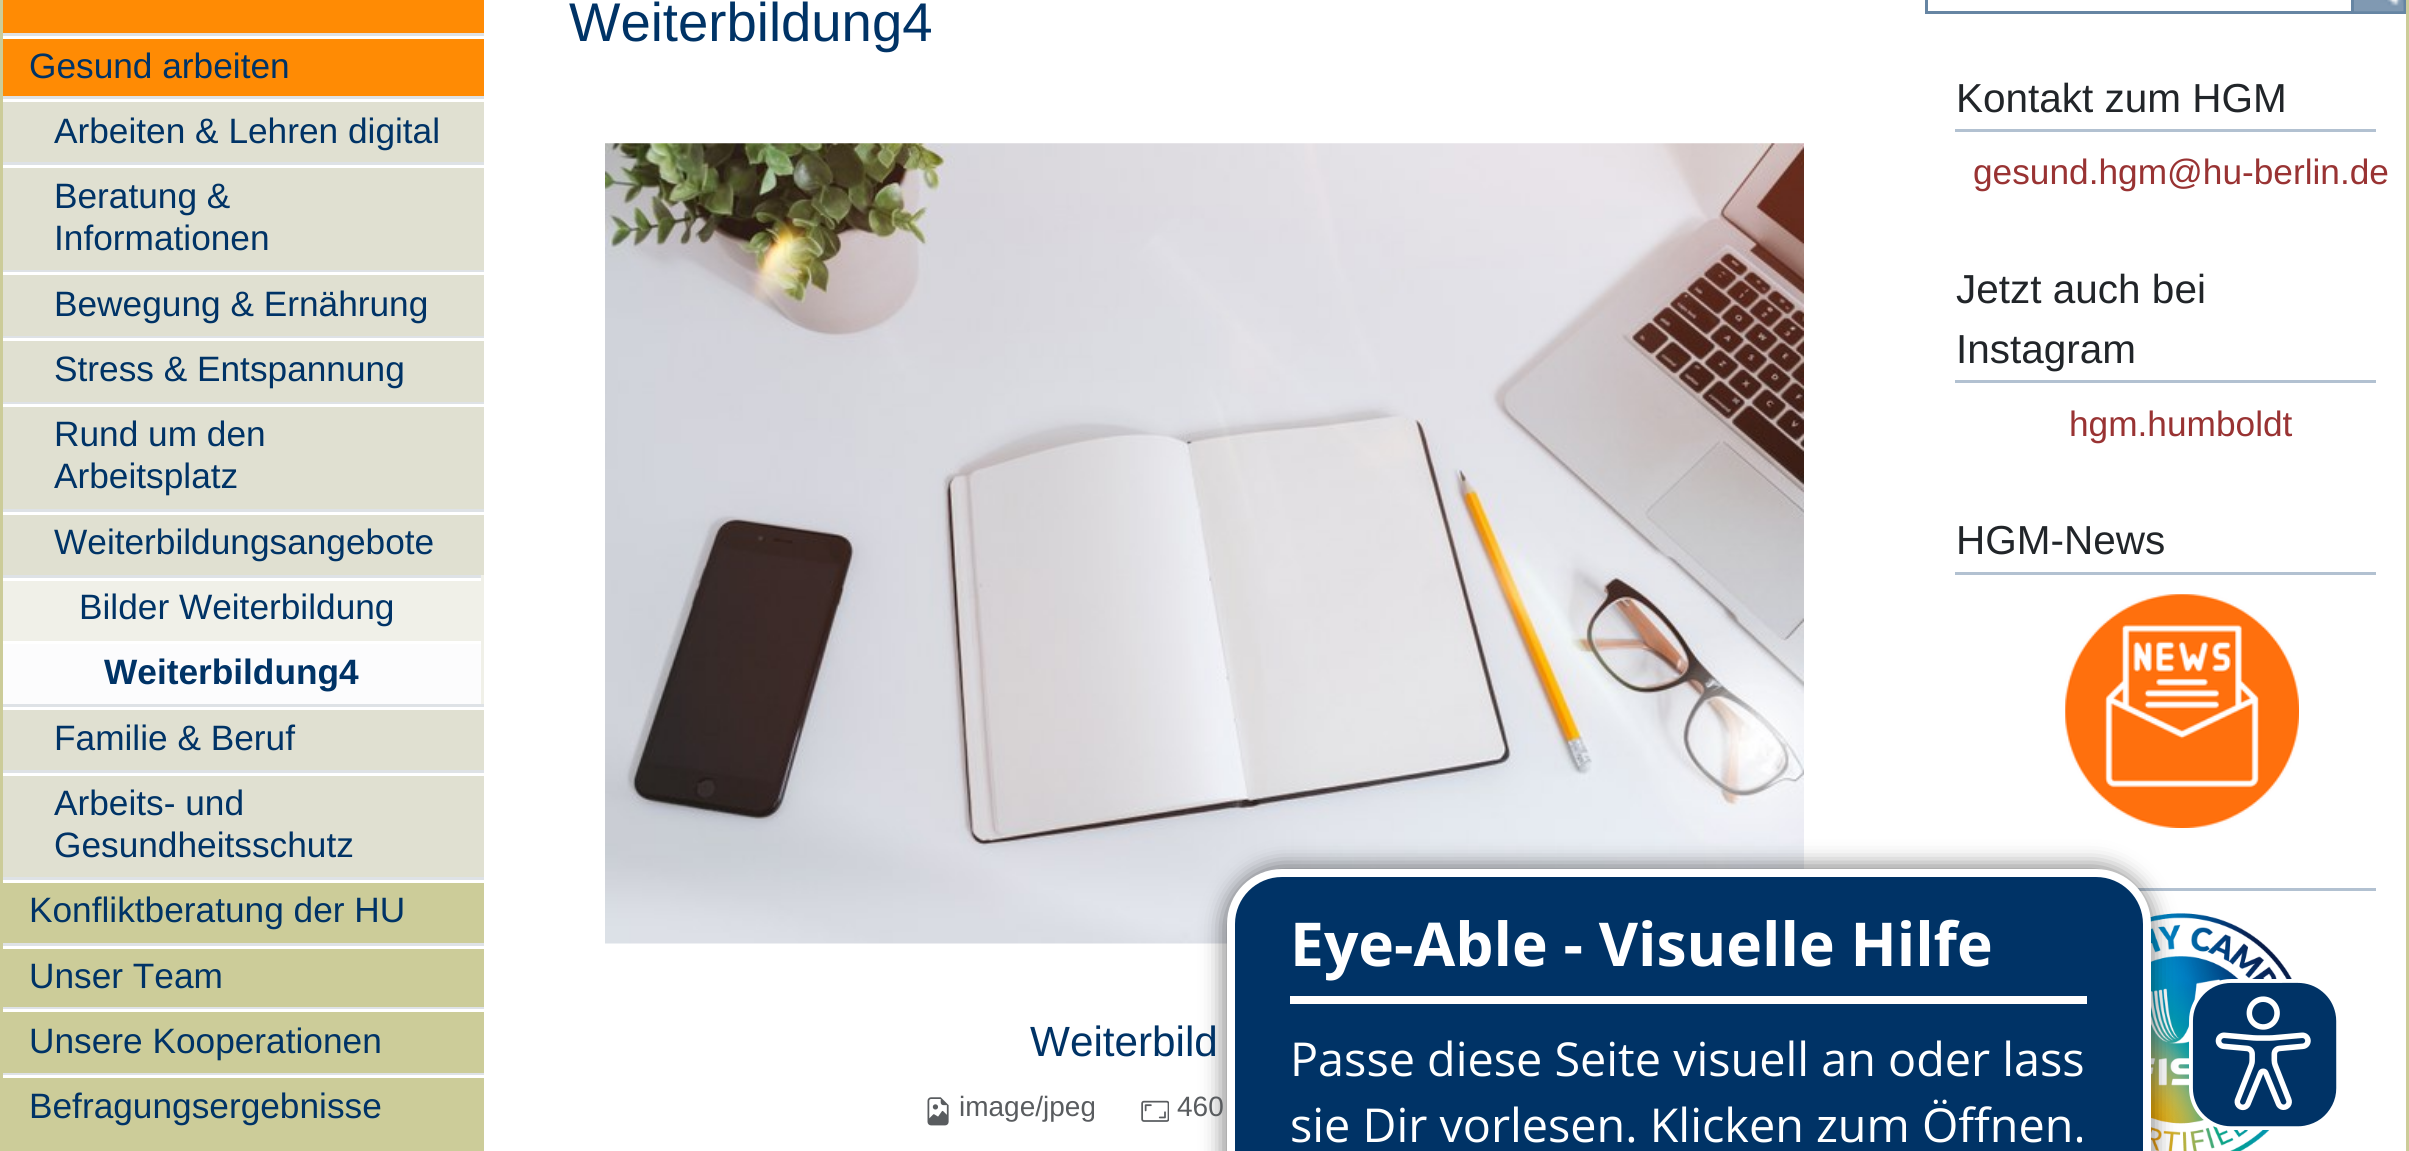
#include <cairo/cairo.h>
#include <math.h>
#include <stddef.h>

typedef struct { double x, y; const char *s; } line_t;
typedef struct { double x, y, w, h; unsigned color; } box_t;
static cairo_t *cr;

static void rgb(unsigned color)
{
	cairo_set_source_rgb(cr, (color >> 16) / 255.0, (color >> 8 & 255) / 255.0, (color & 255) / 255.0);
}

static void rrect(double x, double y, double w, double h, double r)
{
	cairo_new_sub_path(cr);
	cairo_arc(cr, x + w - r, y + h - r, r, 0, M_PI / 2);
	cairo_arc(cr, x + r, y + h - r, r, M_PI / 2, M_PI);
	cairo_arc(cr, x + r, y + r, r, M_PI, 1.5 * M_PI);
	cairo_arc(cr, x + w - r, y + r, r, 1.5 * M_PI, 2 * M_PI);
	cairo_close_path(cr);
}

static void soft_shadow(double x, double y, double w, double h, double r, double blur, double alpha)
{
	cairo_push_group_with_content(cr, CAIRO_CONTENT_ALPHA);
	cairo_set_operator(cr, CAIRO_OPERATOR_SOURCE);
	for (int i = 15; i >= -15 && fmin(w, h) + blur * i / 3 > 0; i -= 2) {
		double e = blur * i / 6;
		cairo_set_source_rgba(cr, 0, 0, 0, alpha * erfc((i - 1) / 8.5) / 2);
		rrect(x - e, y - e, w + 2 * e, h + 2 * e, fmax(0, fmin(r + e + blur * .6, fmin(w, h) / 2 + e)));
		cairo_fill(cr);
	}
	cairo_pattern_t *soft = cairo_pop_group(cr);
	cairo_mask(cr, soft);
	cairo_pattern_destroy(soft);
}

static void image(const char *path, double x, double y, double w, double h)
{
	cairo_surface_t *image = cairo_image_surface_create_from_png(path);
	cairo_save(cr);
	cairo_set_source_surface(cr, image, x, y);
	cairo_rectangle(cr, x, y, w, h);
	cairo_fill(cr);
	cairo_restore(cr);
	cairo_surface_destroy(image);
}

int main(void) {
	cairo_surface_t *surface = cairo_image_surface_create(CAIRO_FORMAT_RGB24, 2409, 1151);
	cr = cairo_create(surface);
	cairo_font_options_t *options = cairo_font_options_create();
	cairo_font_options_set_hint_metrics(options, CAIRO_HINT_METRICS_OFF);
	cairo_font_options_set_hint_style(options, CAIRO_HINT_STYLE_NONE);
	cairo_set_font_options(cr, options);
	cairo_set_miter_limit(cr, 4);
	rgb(0xffffff);
	cairo_paint(cr);
	{
		static const box_t items[] = {
			{2406, 0, 3, 1151, 0xcccc99},
			{0, 0, 3, 1151, 0xcccc99},
			{3, 0, 481, 33, 0xff8b04},
			{3, 39, 481, 57, 0xff8b04},
			{3, 33, 481, 3, 0xdee2e6},
			{3, 102, 481, 60, 0xe0e0d1},
			{3, 96, 481, 3, 0xdee2e6},
			{3, 168, 481, 102, 0xe0e0d1},
			{3, 162, 481, 3, 0xdee2e6},
			{3, 275, 481, 61, 0xe0e0d1},
			{3, 270, 481, 2, 0xdee2e6},
			{3, 341, 481, 61, 0xe0e0d1},
			{3, 336, 481, 2, 0xdee2e6},
			{3, 407, 481, 102, 0xe0e0d1},
			{3, 402, 481, 2, 0xdee2e6},
			{3, 515, 481, 60, 0xe0e0d1},
			{3, 509, 481, 3, 0xdee2e6},
			{3, 581, 478, 60, 0xf0f0e8},
			{3, 575, 481, 3, 0xdee2e6},
			{481, 575, 3, 129, 0xf0f0e8},
			{3, 644, 478, 60, 0xfcfcfd},
			{3, 710, 481, 60, 0xe0e0d1},
			{3, 704, 481, 3, 0xdee2e6},
			{3, 776, 481, 101, 0xe0e0d1},
			{3, 770, 481, 3, 0xdee2e6},
			{3, 883, 481, 60, 0xcccc99},
			{3, 877, 481, 3, 0xdee2e6},
			{3, 949, 481, 58, 0xcccc99},
			{3, 943, 481, 3, 0xdee2e6},
			{3, 1012, 481, 61, 0xcccc99},
			{3, 1007, 481, 2, 0xdee2e6},
			{3, 1078, 481, 73, 0xcccc99},
			{3, 1073, 481, 2, 0xdee2e6},
		};
		for (size_t i = 0; i < sizeof items / sizeof *items; i++) {
			rgb(items[i].color);
			cairo_rectangle(cr, items[i].x, items[i].y, items[i].w, items[i].h);
			cairo_fill(cr);
		}
	}
	image("img/1.png", 605, 143, 1199, 801);
	image("img/2.png", 927, 1097, 22, 29);
	image("img/3.png", 1141, 1100, 28, 22);
	cairo_rectangle(cr, 1926.5, -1.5, 478, 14);
	rgb(0x6685a3);
	cairo_set_line_width(cr, 3);
	cairo_stroke(cr);
	cairo_rectangle(cr, 2352.5, -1.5, 52, 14);
	cairo_stroke(cr);
	image("img/4.png", 2354, 0, 50, 12);
	{
		static const box_t items[] = {
			{1955, 129, 421, 3, 0xb2c1d1},
			{1955, 380, 421, 3, 0xb2c1d1},
			{1955, 572, 421, 3, 0xb2c1d1},
		};
		for (size_t i = 0; i < sizeof items / sizeof *items; i++) {
			rgb(items[i].color);
			cairo_rectangle(cr, items[i].x, items[i].y, items[i].w, items[i].h);
			cairo_fill(cr);
		}
	}
	image("img/5.png", 2065, 594, 234, 234);
	cairo_rectangle(cr, 2137, 888, 239, 3);
	cairo_fill(cr);
	image("img/6.png", 2150, 913, 142, 238);
	rgb(0x000000);
	soft_shadow(1224, 866, 929, 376, 58, 11, 0.5);
	rgb(0x003366);
	rrect(1231, 873, 916, 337, 51);
	cairo_fill_preserve(cr);
	rgb(0xffffff);
	cairo_set_line_width(cr, 8);
	cairo_stroke(cr);
	cairo_rectangle(cr, 1290, 996, 797, 8);
	cairo_fill(cr);
	image("img/7.png", 2189, 979, 148, 151);
	cairo_select_font_face(cr, "Liberation Sans", CAIRO_FONT_SLANT_NORMAL, CAIRO_FONT_WEIGHT_NORMAL);
	cairo_set_font_size(cr, 35.25);
	rgb(0x003366);
	{
		static const line_t items[] = {
			{29, 78, "Gesund arbeiten"},
			{54, 143, "Arbeiten & Lehren digital"},
			{54, 208, "Beratung &"},
			{54, 250, "Informationen"},
			{54, 316, "Bewegung & Ernährung"},
			{54, 381, "Stress & Entspannung"},
			{54, 446, "Rund um den"},
			{54, 488, "Arbeitsplatz"},
			{54, 554, "Weiterbildungsangebote"},
			{79, 619, "Bilder Weiterbildung"},
		};
		for (size_t i = 0; i < sizeof items / sizeof *items; i++) {
			cairo_move_to(cr, items[i].x, items[i].y);
			cairo_show_text(cr, items[i].s);
		}
	}
	cairo_select_font_face(cr, "Liberation Sans", CAIRO_FONT_SLANT_NORMAL, CAIRO_FONT_WEIGHT_BOLD);
	cairo_move_to(cr, 104, 684);
	cairo_show_text(cr, "Weiterbildung4");
	cairo_select_font_face(cr, "Liberation Sans", CAIRO_FONT_SLANT_NORMAL, CAIRO_FONT_WEIGHT_NORMAL);
	{
		static const line_t items[] = {
			{54, 750, "Familie & Beruf"},
			{54, 815, "Arbeits- und"},
			{54, 857, "Gesundheitsschutz"},
			{29, 922, "Konfliktberatung der HU"},
			{29, 988, "Unser Team"},
			{29, 1053, "Unsere Kooperationen"},
			{29, 1118, "Befragungsergebnisse"},
		};
		for (size_t i = 0; i < sizeof items / sizeof *items; i++) {
			cairo_move_to(cr, items[i].x, items[i].y);
			cairo_show_text(cr, items[i].s);
		}
	}
	cairo_set_font_size(cr, 54.5);
	cairo_move_to(cr, 569, 41);
	cairo_show_text(cr, "Weiterbildung4");
	cairo_set_font_size(cr, 42.25);
	cairo_move_to(cr, 1030, 1056);
	cairo_show_text(cr, "Weiterbild");
	cairo_set_font_size(cr, 28);
	rgb(0x595c5f);
	cairo_move_to(cr, 959, 1116);
	cairo_show_text(cr, "image/jpeg");
	cairo_move_to(cr, 1177, 1116);
	cairo_show_text(cr, "460");
	cairo_set_font_size(cr, 40.5);
	rgb(0x212529);
	cairo_move_to(cr, 1956, 112);
	cairo_show_text(cr, "Kontakt zum HGM");
	cairo_set_font_size(cr, 35.25);
	rgb(0x993333);
	cairo_move_to(cr, 1973, 184);
	cairo_show_text(cr, "gesund.hgm@hu-berlin.de");
	cairo_set_font_size(cr, 40.5);
	rgb(0x212529);
	cairo_move_to(cr, 1956, 303);
	cairo_show_text(cr, "Jetzt auch bei");
	cairo_move_to(cr, 1956, 363);
	cairo_show_text(cr, "Instagram");
	cairo_set_font_size(cr, 35.25);
	rgb(0x993333);
	cairo_move_to(cr, 2069, 436);
	cairo_show_text(cr, "hgm.humboldt");
	cairo_set_font_size(cr, 40.5);
	rgb(0x212529);
	cairo_move_to(cr, 1956, 554);
	cairo_show_text(cr, "HGM-News");
	cairo_select_font_face(cr, "Open Sans", CAIRO_FONT_SLANT_NORMAL, CAIRO_FONT_WEIGHT_BOLD);
	cairo_set_font_size(cr, 60.5);
	rgb(0xffffff);
	cairo_move_to(cr, 1290, 966);
	cairo_show_text(cr, "Eye-Able - Visuelle Hilfe");
	cairo_select_font_face(cr, "Open Sans", CAIRO_FONT_SLANT_NORMAL, CAIRO_FONT_WEIGHT_NORMAL);
	cairo_set_font_size(cr, 46.75);
	cairo_move_to(cr, 1290, 1076);
	cairo_show_text(cr, "Passe diese Seite visuell an oder lass");
	cairo_move_to(cr, 1290, 1142);
	cairo_show_text(cr, "sie Dir vorlesen. Klicken zum Öffnen.");
	cairo_surface_write_to_png(surface, "page.png");
	cairo_font_options_destroy(options);
	cairo_destroy(cr);
	cairo_surface_destroy(surface);
	return 0;
}
